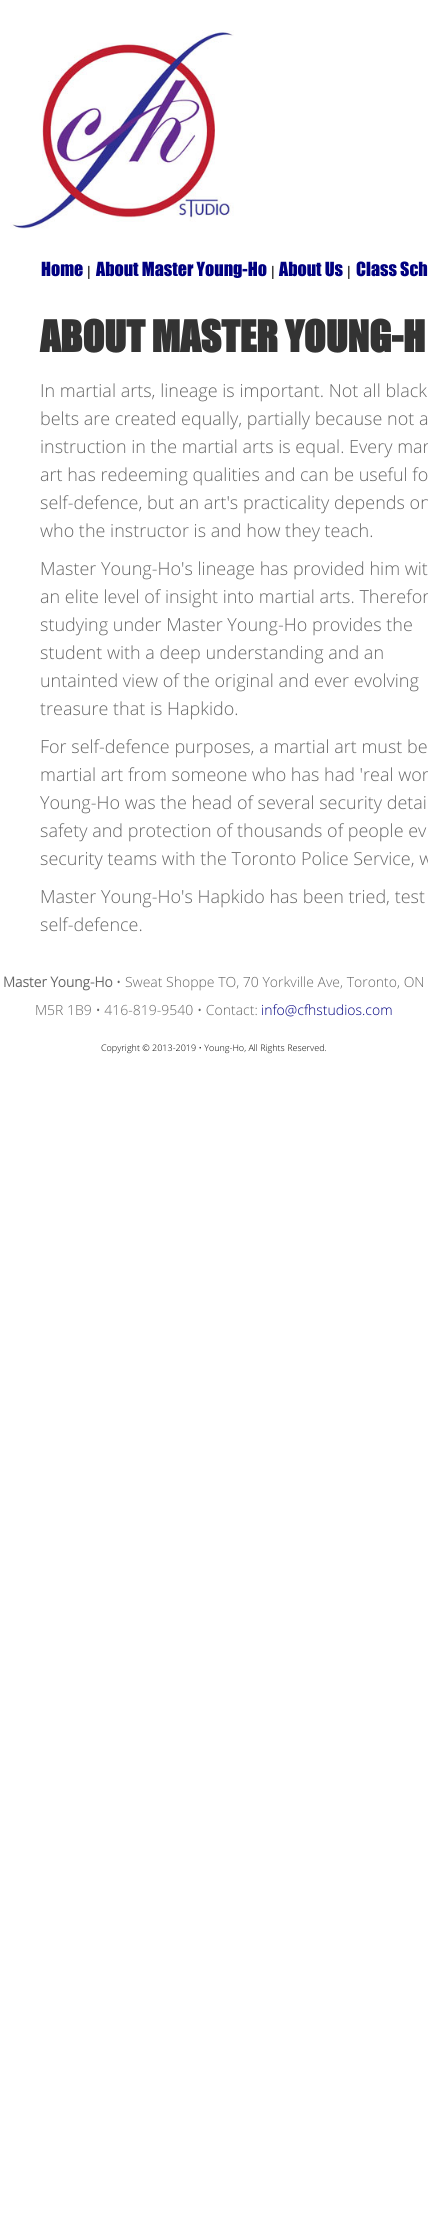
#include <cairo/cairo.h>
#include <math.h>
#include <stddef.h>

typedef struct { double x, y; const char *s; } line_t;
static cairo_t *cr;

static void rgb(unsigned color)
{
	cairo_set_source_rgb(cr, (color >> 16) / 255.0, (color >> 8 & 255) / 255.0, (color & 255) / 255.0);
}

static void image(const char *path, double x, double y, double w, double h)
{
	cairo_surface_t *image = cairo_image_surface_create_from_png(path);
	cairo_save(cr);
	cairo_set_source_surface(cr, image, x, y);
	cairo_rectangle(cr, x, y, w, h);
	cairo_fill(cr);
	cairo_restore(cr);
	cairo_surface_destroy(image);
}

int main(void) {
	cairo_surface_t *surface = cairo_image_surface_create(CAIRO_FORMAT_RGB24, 428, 2218);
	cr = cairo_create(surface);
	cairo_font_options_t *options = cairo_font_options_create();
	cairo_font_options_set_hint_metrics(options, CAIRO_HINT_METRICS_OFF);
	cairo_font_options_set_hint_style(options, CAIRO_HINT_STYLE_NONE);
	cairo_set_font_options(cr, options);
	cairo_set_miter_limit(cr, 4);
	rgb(0xffffff);
	cairo_paint(cr);
	image("img/1.png", 10, 30, 224, 199);
	cairo_select_font_face(cr, "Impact", CAIRO_FONT_SLANT_NORMAL, CAIRO_FONT_WEIGHT_NORMAL);
	cairo_set_font_size(cr, 18);
	rgb(0x000080);
	cairo_move_to(cr, 41, 276);
	cairo_show_text(cr, "Home");
	cairo_select_font_face(cr, "Liberation Sans", CAIRO_FONT_SLANT_NORMAL, CAIRO_FONT_WEIGHT_NORMAL);
	cairo_set_font_size(cr, 14);
	rgb(0x000000);
	cairo_move_to(cr, 87, 276);
	cairo_show_text(cr, "|");
	cairo_select_font_face(cr, "Impact", CAIRO_FONT_SLANT_NORMAL, CAIRO_FONT_WEIGHT_NORMAL);
	cairo_set_font_size(cr, 18);
	rgb(0x000080);
	cairo_move_to(cr, 96, 276);
	cairo_show_text(cr, "About Master Young-Ho");
	cairo_select_font_face(cr, "Liberation Sans", CAIRO_FONT_SLANT_NORMAL, CAIRO_FONT_WEIGHT_NORMAL);
	cairo_set_font_size(cr, 14);
	rgb(0x000000);
	cairo_move_to(cr, 271, 276);
	cairo_show_text(cr, "|");
	cairo_select_font_face(cr, "Impact", CAIRO_FONT_SLANT_NORMAL, CAIRO_FONT_WEIGHT_NORMAL);
	cairo_set_font_size(cr, 18);
	rgb(0x000080);
	cairo_move_to(cr, 279, 276);
	cairo_show_text(cr, "About Us");
	cairo_select_font_face(cr, "Liberation Sans", CAIRO_FONT_SLANT_NORMAL, CAIRO_FONT_WEIGHT_NORMAL);
	cairo_set_font_size(cr, 14);
	rgb(0x000000);
	cairo_move_to(cr, 347, 276);
	cairo_show_text(cr, "|");
	cairo_select_font_face(cr, "Impact", CAIRO_FONT_SLANT_NORMAL, CAIRO_FONT_WEIGHT_NORMAL);
	cairo_set_font_size(cr, 18);
	rgb(0x000080);
	cairo_move_to(cr, 356, 276);
	cairo_show_text(cr, "Class Sch");
	cairo_select_font_face(cr, "Impact", CAIRO_FONT_SLANT_NORMAL, CAIRO_FONT_WEIGHT_BOLD);
	cairo_set_font_size(cr, 40);
	rgb(0x333333);
	cairo_move_to(cr, 40, 352);
	cairo_show_text(cr, "ABOUT MASTER YOUNG-H");
	cairo_select_font_face(cr, "Open Sans Light", CAIRO_FONT_SLANT_NORMAL, CAIRO_FONT_WEIGHT_NORMAL);
	cairo_set_font_size(cr, 18);
	rgb(0x666666);
	{
		static const line_t items[] = {
			{40, 397, "In martial arts, lineage is important. Not all black"},
			{40, 425, "belts are created equally, partially because not a"},
			{40, 453, "instruction in the martial arts is equal. Every mar"},
			{40, 481, "art has redeeming qualities and can be useful fo"},
			{40, 509, "self-defence, but an art's practicality depends on"},
			{40, 537, "who the instructor is and how they teach."},
			{40, 575, "Master Young-Ho's lineage has provided him wit"},
			{40, 603, "an elite level of insight into martial arts. Therefor"},
			{40, 631, "studying under Master Young-Ho provides the"},
			{40, 659, "student with a deep understanding and an"},
			{40, 687, "untainted view of the original and ever evolving"},
			{40, 715, "treasure that is Hapkido."},
			{40, 753, "For self-defence purposes, a martial art must be"},
			{40, 781, "martial art from someone who has had 'real wor"},
			{40, 809, "Young-Ho was the head of several security detai"},
			{40, 837, "safety and protection of thousands of people ev"},
			{40, 865, "security teams with the Toronto Police Service, w"},
			{40, 903, "Master Young-Ho's Hapkido has been tried, test"},
			{40, 931, "self-defence."},
		};
		for (size_t i = 0; i < sizeof items / sizeof *items; i++) {
			cairo_move_to(cr, items[i].x, items[i].y);
			cairo_show_text(cr, items[i].s);
		}
	}
	cairo_select_font_face(cr, "Open Sans", CAIRO_FONT_SLANT_NORMAL, CAIRO_FONT_WEIGHT_BOLD);
	cairo_set_font_size(cr, 14);
	cairo_move_to(cr, 3, 987);
	cairo_show_text(cr, "Master Young-Ho");
	cairo_select_font_face(cr, "Open Sans Light", CAIRO_FONT_SLANT_NORMAL, CAIRO_FONT_WEIGHT_NORMAL);
	cairo_move_to(cr, 116, 987);
	cairo_show_text(cr, "• Sweat Shoppe TO, 70 Yorkville Ave, Toronto, ON");
	cairo_move_to(cr, 35, 1015);
	cairo_show_text(cr, "M5R 1B9 • 416-819-9540 • Contact:");
	rgb(0x000080);
	cairo_move_to(cr, 261, 1015);
	cairo_show_text(cr, "info@cfhstudios.com");
	cairo_set_font_size(cr, 9);
	rgb(0x000000);
	cairo_move_to(cr, 101, 1051);
	cairo_show_text(cr, "Copyright © 2013-2019 • Young-Ho, All Rights Reserved.");
	cairo_surface_write_to_png(surface, "page.png");
	cairo_font_options_destroy(options);
	cairo_destroy(cr);
	cairo_surface_destroy(surface);
	return 0;
}
